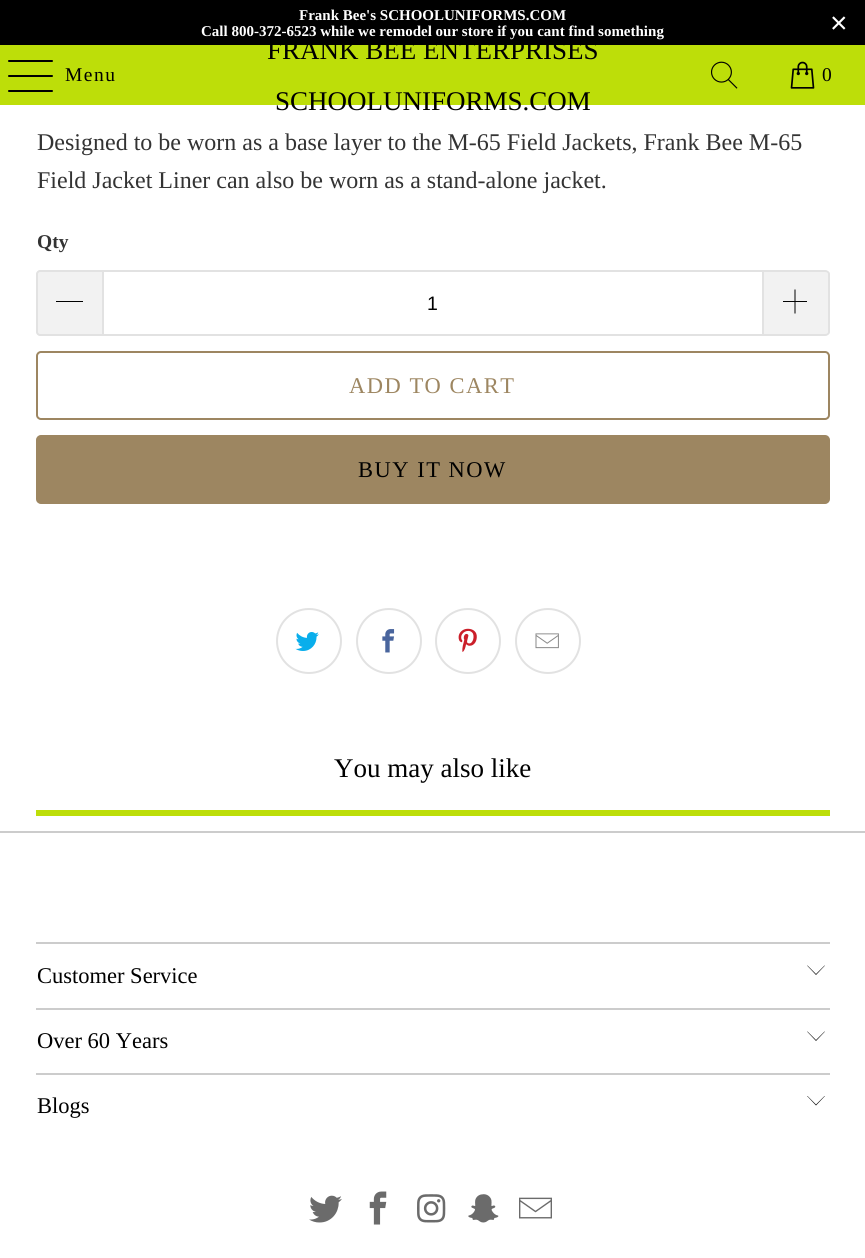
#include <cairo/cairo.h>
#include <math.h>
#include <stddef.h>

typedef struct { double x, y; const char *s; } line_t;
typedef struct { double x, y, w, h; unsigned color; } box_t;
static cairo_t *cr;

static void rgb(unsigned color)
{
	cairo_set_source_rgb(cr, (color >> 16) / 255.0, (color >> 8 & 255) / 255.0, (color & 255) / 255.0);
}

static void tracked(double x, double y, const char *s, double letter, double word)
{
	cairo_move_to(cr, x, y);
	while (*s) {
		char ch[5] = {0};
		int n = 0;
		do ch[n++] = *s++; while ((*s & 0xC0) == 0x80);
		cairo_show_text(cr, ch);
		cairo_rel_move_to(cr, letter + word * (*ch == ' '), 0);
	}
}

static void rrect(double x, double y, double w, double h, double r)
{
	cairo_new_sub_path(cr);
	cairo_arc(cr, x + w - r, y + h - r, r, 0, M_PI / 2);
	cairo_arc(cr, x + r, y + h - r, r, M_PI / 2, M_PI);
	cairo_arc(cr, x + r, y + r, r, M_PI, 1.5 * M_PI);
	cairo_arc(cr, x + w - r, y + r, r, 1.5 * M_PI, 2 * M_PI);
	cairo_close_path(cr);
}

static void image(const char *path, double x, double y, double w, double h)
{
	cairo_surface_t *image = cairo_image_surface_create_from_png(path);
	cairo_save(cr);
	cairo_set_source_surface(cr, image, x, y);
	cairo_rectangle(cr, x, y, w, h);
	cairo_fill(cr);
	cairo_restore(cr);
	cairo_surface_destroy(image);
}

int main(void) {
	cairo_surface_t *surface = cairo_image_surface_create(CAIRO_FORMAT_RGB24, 865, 1258);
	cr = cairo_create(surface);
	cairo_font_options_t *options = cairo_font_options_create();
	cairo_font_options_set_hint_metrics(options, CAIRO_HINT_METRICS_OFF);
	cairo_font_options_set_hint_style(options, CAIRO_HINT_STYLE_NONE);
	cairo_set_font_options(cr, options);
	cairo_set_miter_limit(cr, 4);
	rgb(0xffffff);
	cairo_paint(cr);
	rgb(0x000000);
	cairo_rectangle(cr, 0, 0, 865, 45);
	cairo_fill(cr);
	rgb(0xbdde09);
	cairo_rectangle(cr, 0, 45, 865, 60);
	cairo_fill(cr);
	rgb(0x000000);
	rrect(8, 60, 45, 2, 1);
	cairo_fill(cr);
	rrect(8, 75, 45, 2, 1);
	cairo_fill(cr);
	rrect(8, 90, 45, 2, 1);
	cairo_fill(cr);
	image("img/1.png", 711, 61, 27, 28);
	image("img/2.png", 790, 61, 25, 28);
	rgb(0xf2f2f2);
	cairo_new_path(cr);
	cairo_move_to(cr, 41, 270);
	cairo_line_to(cr, 102, 270);
	cairo_line_to(cr, 102, 336);
	cairo_line_to(cr, 41, 336);
	cairo_curve_to(cr, 38, 336, 36, 334, 36, 331);
	cairo_line_to(cr, 36, 275);
	cairo_curve_to(cr, 36, 272, 38, 270, 41, 270);
	cairo_close_path(cr);
	cairo_fill(cr);
	rgb(0xe2e2e2);
	cairo_set_fill_rule(cr, CAIRO_FILL_RULE_EVEN_ODD);
	cairo_new_path(cr);
	cairo_move_to(cr, 40, 270);
	cairo_line_to(cr, 102, 270);
	cairo_line_to(cr, 102, 336);
	cairo_line_to(cr, 40, 336);
	cairo_curve_to(cr, 38, 336, 36, 334, 36, 332);
	cairo_line_to(cr, 36, 274);
	cairo_curve_to(cr, 36, 272, 38, 270, 40, 270);
	cairo_close_path(cr);
	cairo_move_to(cr, 40, 272);
	cairo_line_to(cr, 102, 272);
	cairo_line_to(cr, 102, 334);
	cairo_line_to(cr, 40, 334);
	cairo_curve_to(cr, 39, 334, 38, 333, 38, 332);
	cairo_line_to(cr, 38, 274);
	cairo_curve_to(cr, 38, 273, 39, 272, 40, 272);
	cairo_close_path(cr);
	cairo_fill(cr);
	rgb(0x000000);
	cairo_rectangle(cr, 56, 301, 27, 1);
	cairo_fill(cr);
	cairo_rectangle(cr, 103, 271, 660, 64);
	rgb(0xe2e2e2);
	cairo_stroke(cr);
	rgb(0xf2f2f2);
	cairo_new_path(cr);
	cairo_move_to(cr, 764, 270);
	cairo_line_to(cr, 825, 270);
	cairo_curve_to(cr, 828, 270, 830, 272, 830, 275);
	cairo_line_to(cr, 830, 331);
	cairo_curve_to(cr, 830, 334, 828, 336, 825, 336);
	cairo_line_to(cr, 764, 336);
	cairo_close_path(cr);
	cairo_fill(cr);
	rgb(0xe2e2e2);
	cairo_new_path(cr);
	cairo_move_to(cr, 764, 270);
	cairo_line_to(cr, 825, 270);
	cairo_curve_to(cr, 827, 270, 830, 272, 830, 274);
	cairo_line_to(cr, 830, 332);
	cairo_curve_to(cr, 830, 334, 827, 336, 825, 336);
	cairo_line_to(cr, 764, 336);
	cairo_close_path(cr);
	cairo_move_to(cr, 764, 272);
	cairo_line_to(cr, 825, 272);
	cairo_curve_to(cr, 827, 272, 828, 273, 828, 274);
	cairo_line_to(cr, 828, 332);
	cairo_curve_to(cr, 828, 333, 827, 334, 825, 334);
	cairo_line_to(cr, 764, 334);
	cairo_close_path(cr);
	cairo_fill(cr);
	image("img/3.png", 783, 289, 24, 25);
	rrect(37, 352, 792, 67, 4);
	rgb(0x9d8661);
	cairo_stroke(cr);
	rrect(37, 436, 792, 67, 4);
	cairo_fill_preserve(cr);
	cairo_stroke(cr);
	cairo_arc(cr, 309, 641, 32, 0, 2 * M_PI);
	rgb(0xe2e2e2);
	cairo_stroke(cr);
	image("img/4.png", 295, 632, 24, 19);
	cairo_arc(cr, 389, 641, 32, 0, 2 * M_PI);
	cairo_stroke(cr);
	image("img/5.png", 382, 629, 13, 24);
	cairo_arc(cr, 468, 641, 32, 0, 2 * M_PI);
	cairo_stroke(cr);
	image("img/6.png", 458, 628, 19, 24);
	cairo_arc(cr, 548, 641, 32, 0, 2 * M_PI);
	cairo_stroke(cr);
	image("img/7.png", 535, 633, 24, 16);
	{
		static const box_t items[] = {
			{36, 810, 794, 6, 0xbdde09},
			{0, 831, 865, 2, 0xcccccc},
			{36, 942, 794, 2, 0xcccccc},
		};
		for (size_t i = 0; i < sizeof items / sizeof *items; i++) {
			rgb(items[i].color);
			cairo_rectangle(cr, items[i].x, items[i].y, items[i].w, items[i].h);
			cairo_fill(cr);
		}
	}
	rgb(0x040404);
	cairo_set_fill_rule(cr, CAIRO_FILL_RULE_WINDING);
	cairo_new_path(cr);
	cairo_move_to(cr, 816, 975);
	cairo_line_to(cr, 807, 965.5);
	cairo_line_to(cr, 807.5, 965.5);
	cairo_line_to(cr, 816, 974);
	cairo_line_to(cr, 824.5, 965.5);
	cairo_line_to(cr, 825, 965.5);
	cairo_close_path(cr);
	cairo_fill(cr);
	rgb(0xcccccc);
	cairo_rectangle(cr, 36, 1008, 794, 2);
	cairo_fill(cr);
	rgb(0x040404);
	cairo_new_path(cr);
	cairo_move_to(cr, 816, 1041);
	cairo_line_to(cr, 807, 1031.5);
	cairo_line_to(cr, 807.5, 1031.5);
	cairo_line_to(cr, 816, 1040);
	cairo_line_to(cr, 824.5, 1031.5);
	cairo_line_to(cr, 825, 1031.5);
	cairo_close_path(cr);
	cairo_fill(cr);
	rgb(0xcccccc);
	cairo_rectangle(cr, 36, 1073, 794, 2);
	cairo_fill(cr);
	rgb(0x040404);
	cairo_new_path(cr);
	cairo_move_to(cr, 816, 1105.5);
	cairo_line_to(cr, 807, 1096);
	cairo_line_to(cr, 807.5, 1096);
	cairo_line_to(cr, 816, 1104.5);
	cairo_line_to(cr, 824.5, 1096);
	cairo_line_to(cr, 825, 1096);
	cairo_close_path(cr);
	cairo_fill(cr);
	image("img/8.png", 309, 1195, 33, 28);
	image("img/9.png", 369, 1191, 18, 34);
	image("img/10.png", 417, 1194, 29, 29);
	image("img/11.png", 468, 1194, 31, 29);
	image("img/12.png", 519, 1197, 33, 22);
	cairo_select_font_face(cr, "Liberation Serif", CAIRO_FONT_SLANT_NORMAL, CAIRO_FONT_WEIGHT_BOLD);
	cairo_set_font_size(cr, 15);
	rgb(0xffffff);
	cairo_move_to(cr, 299, 20);
	cairo_show_text(cr, "Frank Bee's SCHOOLUNIFORMS.COM");
	cairo_move_to(cr, 201, 36);
	cairo_show_text(cr, "Call 800-372-6523 while we remodel our store if you cant find something");
	cairo_select_font_face(cr, "Liberation Sans", CAIRO_FONT_SLANT_NORMAL, CAIRO_FONT_WEIGHT_NORMAL);
	cairo_set_font_size(cr, 30);
	cairo_move_to(cr, 830, 33);
	cairo_show_text(cr, "×");
	cairo_select_font_face(cr, "Liberation Serif", CAIRO_FONT_SLANT_NORMAL, CAIRO_FONT_WEIGHT_NORMAL);
	cairo_set_font_size(cr, 19.5);
	rgb(0x000000);
	tracked(65, 81, "Menu", 1.5, 0);
	cairo_set_font_size(cr, 27);
	cairo_move_to(cr, 267, 59);
	cairo_show_text(cr, "FRANK BEE ENTERPRISES");
	cairo_move_to(cr, 275, 110);
	cairo_show_text(cr, "SCHOOLUNIFORMS.COM");
	cairo_set_font_size(cr, 19.5);
	tracked(822, 81, "0", 1.5, 0);
	cairo_set_font_size(cr, 24);
	rgb(0x333333);
	cairo_move_to(cr, 37, 150);
	cairo_show_text(cr, "Designed to be worn as a base layer to the M-65 Field Jackets, Frank Bee M-65");
	cairo_move_to(cr, 37, 188);
	cairo_show_text(cr, "Field Jacket Liner can also be worn as a stand-alone jacket.");
	cairo_select_font_face(cr, "Liberation Serif", CAIRO_FONT_SLANT_NORMAL, CAIRO_FONT_WEIGHT_BOLD);
	cairo_set_font_size(cr, 19.5);
	cairo_move_to(cr, 37, 248);
	cairo_show_text(cr, "Qty");
	cairo_select_font_face(cr, "Liberation Sans", CAIRO_FONT_SLANT_NORMAL, CAIRO_FONT_WEIGHT_NORMAL);
	rgb(0x000000);
	cairo_move_to(cr, 427, 310);
	cairo_show_text(cr, "1");
	cairo_select_font_face(cr, "Liberation Serif", CAIRO_FONT_SLANT_NORMAL, CAIRO_FONT_WEIGHT_NORMAL);
	cairo_set_font_size(cr, 22.5);
	rgb(0x9d8661);
	tracked(349, 393, "ADD TO CART", 1.5, 0);
	rgb(0x000000);
	tracked(358, 477, "BUY IT NOW", 1.5, 0);
	cairo_set_font_size(cr, 27);
	cairo_move_to(cr, 334, 777);
	cairo_show_text(cr, "You may also like");
	cairo_set_font_size(cr, 22.5);
	{
		static const line_t items[] = {
			{37, 983, "Customer Service"},
			{37, 1048, "Over 60 Years"},
			{37, 1113, "Blogs"},
		};
		for (size_t i = 0; i < sizeof items / sizeof *items; i++) {
			cairo_move_to(cr, items[i].x, items[i].y);
			cairo_show_text(cr, items[i].s);
		}
	}
	cairo_surface_write_to_png(surface, "page.png");
	cairo_font_options_destroy(options);
	cairo_destroy(cr);
	cairo_surface_destroy(surface);
	return 0;
}
